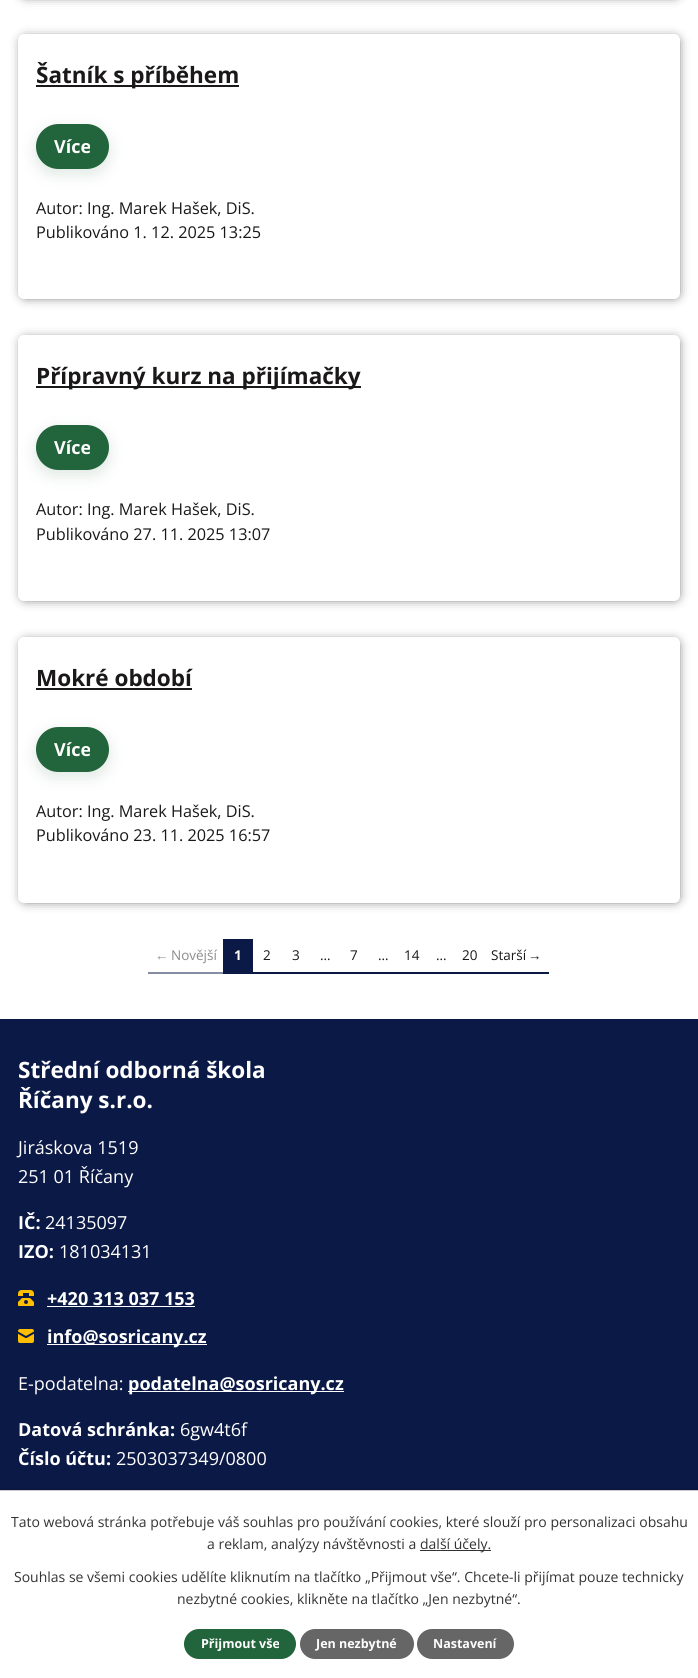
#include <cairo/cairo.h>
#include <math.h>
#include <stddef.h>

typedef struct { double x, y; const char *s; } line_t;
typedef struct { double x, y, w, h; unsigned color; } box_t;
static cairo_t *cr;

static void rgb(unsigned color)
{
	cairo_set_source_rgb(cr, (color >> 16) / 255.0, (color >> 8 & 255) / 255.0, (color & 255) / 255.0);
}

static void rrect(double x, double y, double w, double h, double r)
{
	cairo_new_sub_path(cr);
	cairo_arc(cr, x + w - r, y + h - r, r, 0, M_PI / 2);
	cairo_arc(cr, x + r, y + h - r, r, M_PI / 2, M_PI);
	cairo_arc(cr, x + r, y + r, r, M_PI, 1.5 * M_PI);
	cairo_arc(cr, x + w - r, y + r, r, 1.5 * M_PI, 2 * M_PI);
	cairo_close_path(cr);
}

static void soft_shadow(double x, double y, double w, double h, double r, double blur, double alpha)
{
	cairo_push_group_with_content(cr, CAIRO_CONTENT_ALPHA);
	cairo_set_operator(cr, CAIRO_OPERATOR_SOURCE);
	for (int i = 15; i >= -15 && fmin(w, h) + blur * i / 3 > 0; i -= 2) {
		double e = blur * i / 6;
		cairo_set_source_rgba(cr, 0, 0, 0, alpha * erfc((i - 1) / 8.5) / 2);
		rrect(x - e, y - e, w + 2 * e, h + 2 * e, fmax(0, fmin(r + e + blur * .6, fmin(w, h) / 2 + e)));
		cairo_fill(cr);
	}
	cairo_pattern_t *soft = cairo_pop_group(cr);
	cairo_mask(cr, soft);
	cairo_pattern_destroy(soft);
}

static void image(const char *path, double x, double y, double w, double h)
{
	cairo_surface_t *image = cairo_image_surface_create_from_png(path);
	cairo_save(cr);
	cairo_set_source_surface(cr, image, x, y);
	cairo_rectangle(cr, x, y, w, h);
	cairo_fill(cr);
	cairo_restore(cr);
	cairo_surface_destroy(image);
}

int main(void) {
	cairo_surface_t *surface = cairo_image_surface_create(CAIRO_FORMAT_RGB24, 698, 1678);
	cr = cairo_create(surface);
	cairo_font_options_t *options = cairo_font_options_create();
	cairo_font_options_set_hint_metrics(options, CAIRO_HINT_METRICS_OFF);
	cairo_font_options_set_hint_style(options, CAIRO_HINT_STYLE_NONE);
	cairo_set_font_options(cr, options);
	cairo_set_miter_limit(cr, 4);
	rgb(0xffffff);
	cairo_paint(cr);
	rgb(0x1a1818);
	soft_shadow(24, -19, 652, 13, 1, 6, 1);
	soft_shadow(24, 40, 652, 255, 1, 6, 1);
	rgb(0xffffff);
	rrect(18, 34, 662, 265, 6);
	cairo_fill(cr);
	rgb(0x1a1818);
	cairo_rectangle(cr, 36, 85, 203, 2);
	cairo_fill(cr);
	rgb(0x22643b);
	soft_shadow(36, 129, 73, 45, 22.5, 8, 0.15);
	rgb(0x22643b);
	rrect(36, 124, 73, 45, 22.5);
	cairo_fill(cr);
	rgb(0x1a1818);
	soft_shadow(24, 341, 652, 256, 1, 6, 1);
	rgb(0xffffff);
	rrect(18, 335, 662, 266, 6);
	cairo_fill(cr);
	rgb(0x1a1818);
	cairo_rectangle(cr, 36, 386, 325, 2);
	cairo_fill(cr);
	rgb(0x22643b);
	soft_shadow(36, 430, 73, 45, 22.5, 8, 0.15);
	rgb(0x22643b);
	rrect(36, 425, 73, 45, 22.5);
	cairo_fill(cr);
	rgb(0x1a1818);
	soft_shadow(24, 643, 652, 256, 1, 6, 1);
	rgb(0xffffff);
	rrect(18, 637, 662, 266, 6);
	cairo_fill(cr);
	rgb(0x1a1818);
	cairo_rectangle(cr, 36, 688, 156, 2);
	cairo_fill(cr);
	rgb(0x22643b);
	soft_shadow(36, 732, 73, 45, 22.5, 8, 0.15);
	rgb(0x22643b);
	rrect(36, 727, 73, 45, 22.5);
	cairo_fill(cr);
	{
		static const box_t items[] = {
			{148, 972, 76, 2, 0x858ca3},
			{223, 939, 30, 35, 0x0b1946},
			{252, 972, 297, 2, 0x0b1946},
			{0, 1019, 698, 471, 0x0b1946},
		};
		for (size_t i = 0; i < sizeof items / sizeof *items; i++) {
			rgb(items[i].color);
			cairo_rectangle(cr, items[i].x, items[i].y, items[i].w, items[i].h);
			cairo_fill(cr);
		}
	}
	image("img/1.png", 18, 1290, 16, 16);
	rgb(0xffffff);
	cairo_rectangle(cr, 47, 1306, 148, 1);
	cairo_fill(cr);
	image("img/2.png", 18, 1329, 16, 14);
	cairo_rectangle(cr, 47, 1344, 160, 1);
	cairo_fill(cr);
	cairo_rectangle(cr, 128, 1391, 216, 1);
	cairo_fill(cr);
	rgb(0x000000);
	soft_shadow(0, 1490, 698, 188, 0, 2.5, 0.2);
	{
		static const box_t items[] = {
			{0, 1491, 698, 187, 0xffffff},
			{0, 1490, 698, 1, 0xcccccc},
			{420, 1550, 71, 1, 0x333333},
		};
		for (size_t i = 0; i < sizeof items / sizeof *items; i++) {
			rgb(items[i].color);
			cairo_rectangle(cr, items[i].x, items[i].y, items[i].w, items[i].h);
			cairo_fill(cr);
		}
	}
	rgb(0x22643b);
	rrect(184, 1629, 112, 30, 15);
	cairo_fill(cr);
	rgb(0x666666);
	rrect(300, 1629, 114, 30, 15);
	cairo_fill(cr);
	rrect(417, 1629, 97, 30, 15);
	cairo_fill(cr);
	cairo_select_font_face(cr, "Open Sans", CAIRO_FONT_SLANT_NORMAL, CAIRO_FONT_WEIGHT_BOLD);
	cairo_set_font_size(cr, 22.5);
	rgb(0x1a1818);
	cairo_move_to(cr, 36, 83);
	cairo_show_text(cr, "Šatník s příběhem");
	cairo_set_font_size(cr, 18);
	rgb(0xffffff);
	cairo_move_to(cr, 54, 153);
	cairo_show_text(cr, "Více");
	cairo_select_font_face(cr, "Open Sans", CAIRO_FONT_SLANT_NORMAL, CAIRO_FONT_WEIGHT_NORMAL);
	cairo_set_font_size(cr, 16.25);
	rgb(0x1a1818);
	cairo_move_to(cr, 36, 214);
	cairo_show_text(cr, "Autor: Ing. Marek Hašek, DiS.");
	cairo_move_to(cr, 36, 238);
	cairo_show_text(cr, "Publikováno 1. 12. 2025 13:25");
	cairo_select_font_face(cr, "Open Sans", CAIRO_FONT_SLANT_NORMAL, CAIRO_FONT_WEIGHT_BOLD);
	cairo_set_font_size(cr, 22.5);
	cairo_move_to(cr, 36, 384);
	cairo_show_text(cr, "Přípravný kurz na přijímačky");
	cairo_set_font_size(cr, 18);
	rgb(0xffffff);
	cairo_move_to(cr, 54, 454);
	cairo_show_text(cr, "Více");
	cairo_select_font_face(cr, "Open Sans", CAIRO_FONT_SLANT_NORMAL, CAIRO_FONT_WEIGHT_NORMAL);
	cairo_set_font_size(cr, 16.25);
	rgb(0x1a1818);
	cairo_move_to(cr, 36, 515);
	cairo_show_text(cr, "Autor: Ing. Marek Hašek, DiS.");
	cairo_move_to(cr, 36, 540);
	cairo_show_text(cr, "Publikováno 27. 11. 2025 13:07");
	cairo_select_font_face(cr, "Open Sans", CAIRO_FONT_SLANT_NORMAL, CAIRO_FONT_WEIGHT_BOLD);
	cairo_set_font_size(cr, 22.5);
	cairo_move_to(cr, 36, 686);
	cairo_show_text(cr, "Mokré období");
	cairo_set_font_size(cr, 18);
	rgb(0xffffff);
	cairo_move_to(cr, 54, 756);
	cairo_show_text(cr, "Více");
	cairo_select_font_face(cr, "Open Sans", CAIRO_FONT_SLANT_NORMAL, CAIRO_FONT_WEIGHT_NORMAL);
	cairo_set_font_size(cr, 16.25);
	rgb(0x1a1818);
	cairo_move_to(cr, 36, 817);
	cairo_show_text(cr, "Autor: Ing. Marek Hašek, DiS.");
	cairo_move_to(cr, 36, 841);
	cairo_show_text(cr, "Publikováno 23. 11. 2025 16:57");
	cairo_select_font_face(cr, "Liberation Sans", CAIRO_FONT_SLANT_NORMAL, CAIRO_FONT_WEIGHT_NORMAL);
	cairo_set_font_size(cr, 13.5);
	rgb(0x8d8c8c);
	cairo_move_to(cr, 155, 960);
	cairo_show_text(cr, "←");
	cairo_select_font_face(cr, "Open Sans", CAIRO_FONT_SLANT_NORMAL, CAIRO_FONT_WEIGHT_NORMAL);
	cairo_move_to(cr, 171, 960);
	cairo_show_text(cr, "Novější");
	cairo_select_font_face(cr, "Open Sans", CAIRO_FONT_SLANT_NORMAL, CAIRO_FONT_WEIGHT_BOLD);
	rgb(0xffffff);
	cairo_move_to(cr, 234, 960);
	cairo_show_text(cr, "1");
	cairo_select_font_face(cr, "Open Sans", CAIRO_FONT_SLANT_NORMAL, CAIRO_FONT_WEIGHT_NORMAL);
	rgb(0x1a1818);
	{
		static const line_t items[] = {
			{263, 960, "2"},
			{292, 960, "3"},
			{320, 960, "…"},
			{350, 960, "7"},
			{378, 960, "…"},
			{404, 960, "14"},
			{436, 960, "…"},
			{462, 960, "20"},
			{491, 960, "Starší"},
		};
		for (size_t i = 0; i < sizeof items / sizeof *items; i++) {
			cairo_move_to(cr, items[i].x, items[i].y);
			cairo_show_text(cr, items[i].s);
		}
	}
	cairo_select_font_face(cr, "Liberation Sans", CAIRO_FONT_SLANT_NORMAL, CAIRO_FONT_WEIGHT_NORMAL);
	cairo_move_to(cr, 528, 960);
	cairo_show_text(cr, "→");
	cairo_select_font_face(cr, "Open Sans", CAIRO_FONT_SLANT_NORMAL, CAIRO_FONT_WEIGHT_BOLD);
	cairo_set_font_size(cr, 22.5);
	rgb(0xffffff);
	cairo_move_to(cr, 18, 1078);
	cairo_show_text(cr, "Střední odborná škola");
	cairo_move_to(cr, 18, 1108);
	cairo_show_text(cr, "Říčany s.r.o.");
	cairo_select_font_face(cr, "Open Sans", CAIRO_FONT_SLANT_NORMAL, CAIRO_FONT_WEIGHT_NORMAL);
	cairo_set_font_size(cr, 18);
	cairo_move_to(cr, 18, 1154);
	cairo_show_text(cr, "Jiráskova 1519");
	cairo_move_to(cr, 18, 1183);
	cairo_show_text(cr, "251 01 Říčany");
	cairo_select_font_face(cr, "Open Sans", CAIRO_FONT_SLANT_NORMAL, CAIRO_FONT_WEIGHT_BOLD);
	cairo_move_to(cr, 18, 1229);
	cairo_show_text(cr, "IČ:");
	cairo_select_font_face(cr, "Open Sans", CAIRO_FONT_SLANT_NORMAL, CAIRO_FONT_WEIGHT_NORMAL);
	cairo_move_to(cr, 45, 1229);
	cairo_show_text(cr, "24135097");
	cairo_select_font_face(cr, "Open Sans", CAIRO_FONT_SLANT_NORMAL, CAIRO_FONT_WEIGHT_BOLD);
	cairo_move_to(cr, 18, 1258);
	cairo_show_text(cr, "IZO:");
	cairo_select_font_face(cr, "Open Sans", CAIRO_FONT_SLANT_NORMAL, CAIRO_FONT_WEIGHT_NORMAL);
	cairo_move_to(cr, 59, 1258);
	cairo_show_text(cr, "181034131");
	cairo_select_font_face(cr, "Open Sans", CAIRO_FONT_SLANT_NORMAL, CAIRO_FONT_WEIGHT_BOLD);
	cairo_move_to(cr, 47, 1305);
	cairo_show_text(cr, "+420 313 037 153");
	cairo_move_to(cr, 47, 1343);
	cairo_show_text(cr, "info@sosricany.cz");
	cairo_select_font_face(cr, "Open Sans", CAIRO_FONT_SLANT_NORMAL, CAIRO_FONT_WEIGHT_NORMAL);
	cairo_move_to(cr, 18, 1390);
	cairo_show_text(cr, "E-podatelna:");
	cairo_select_font_face(cr, "Open Sans", CAIRO_FONT_SLANT_NORMAL, CAIRO_FONT_WEIGHT_BOLD);
	cairo_move_to(cr, 128, 1390);
	cairo_show_text(cr, "podatelna@sosricany.cz");
	cairo_move_to(cr, 18, 1436);
	cairo_show_text(cr, "Datová schránka:");
	cairo_select_font_face(cr, "Open Sans", CAIRO_FONT_SLANT_NORMAL, CAIRO_FONT_WEIGHT_NORMAL);
	cairo_move_to(cr, 180, 1436);
	cairo_show_text(cr, "6gw4t6f");
	cairo_select_font_face(cr, "Open Sans", CAIRO_FONT_SLANT_NORMAL, CAIRO_FONT_WEIGHT_BOLD);
	cairo_move_to(cr, 18, 1465);
	cairo_show_text(cr, "Číslo účtu:");
	cairo_select_font_face(cr, "Open Sans", CAIRO_FONT_SLANT_NORMAL, CAIRO_FONT_WEIGHT_NORMAL);
	cairo_move_to(cr, 116, 1465);
	cairo_show_text(cr, "2503037349/0800");
	cairo_set_font_size(cr, 14);
	rgb(0x333333);
	{
		static const line_t items[] = {
			{11, 1527, "Tato webová stránka potřebuje váš souhlas pro používání cookies, které slouží pro personalizaci obsahu"},
			{207, 1549, "a reklam, analýzy návštěvnosti a"},
			{420, 1549, "další účely."},
			{14, 1582, "Souhlas se všemi cookies udělíte kliknutím na tlačítko „Přijmout vše“. Chcete-li přijímat pouze technicky"},
			{177, 1604, "nezbytné cookies, klikněte na tlačítko „Jen nezbytné“."},
		};
		for (size_t i = 0; i < sizeof items / sizeof *items; i++) {
			cairo_move_to(cr, items[i].x, items[i].y);
			cairo_show_text(cr, items[i].s);
		}
	}
	cairo_select_font_face(cr, "Open Sans", CAIRO_FONT_SLANT_NORMAL, CAIRO_FONT_WEIGHT_BOLD);
	cairo_set_font_size(cr, 12.5);
	rgb(0xffffff);
	{
		static const line_t items[] = {
			{201, 1648, "Přijmout vše"},
			{316, 1648, "Jen nezbytné"},
			{433, 1648, "Nastavení"},
		};
		for (size_t i = 0; i < sizeof items / sizeof *items; i++) {
			cairo_move_to(cr, items[i].x, items[i].y);
			cairo_show_text(cr, items[i].s);
		}
	}
	cairo_surface_write_to_png(surface, "page.png");
	cairo_font_options_destroy(options);
	cairo_destroy(cr);
	cairo_surface_destroy(surface);
	return 0;
}
